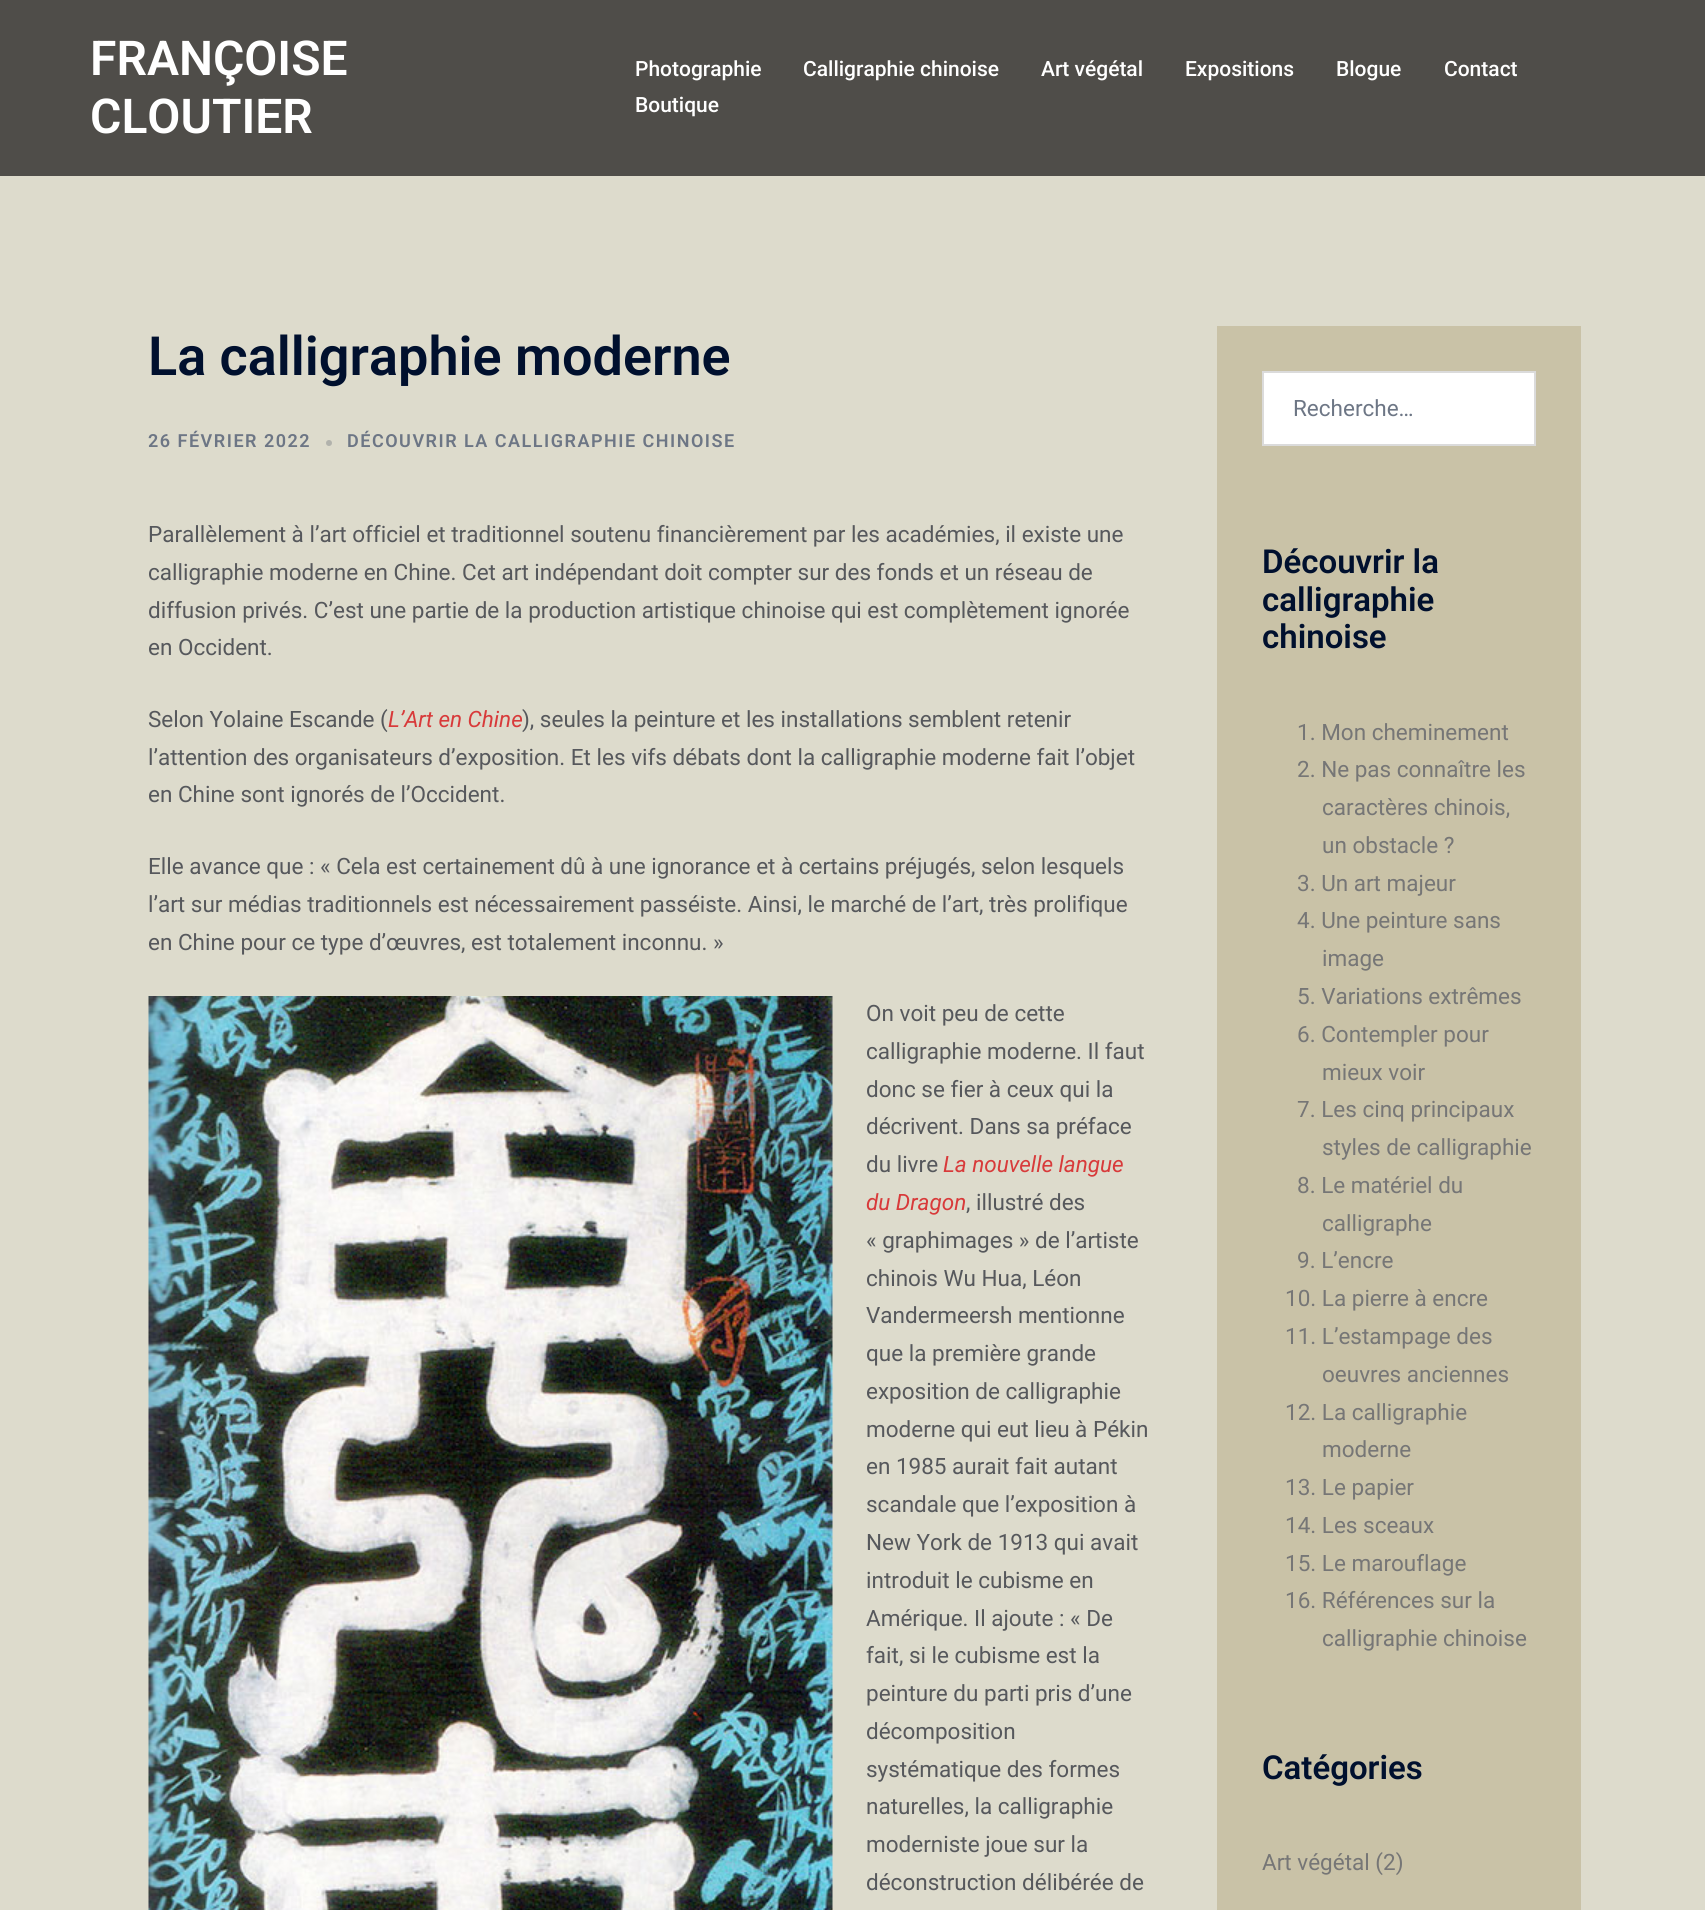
#include <cairo/cairo.h>
#include <math.h>
#include <stddef.h>

typedef struct { double x, y; const char *s; } line_t;
static cairo_t *cr;

static void rgb(unsigned color)
{
	cairo_set_source_rgb(cr, (color >> 16) / 255.0, (color >> 8 & 255) / 255.0, (color & 255) / 255.0);
}

static void tracked(double x, double y, const char *s, double letter, double word)
{
	cairo_move_to(cr, x, y);
	while (*s) {
		char ch[5] = {0};
		int n = 0;
		do ch[n++] = *s++; while ((*s & 0xC0) == 0x80);
		cairo_show_text(cr, ch);
		cairo_rel_move_to(cr, letter + word * (*ch == ' '), 0);
	}
}

static void image(const char *path, double x, double y, double w, double h)
{
	cairo_surface_t *image = cairo_image_surface_create_from_png(path);
	cairo_save(cr);
	cairo_set_source_surface(cr, image, x, y);
	cairo_rectangle(cr, x, y, w, h);
	cairo_fill(cr);
	cairo_restore(cr);
	cairo_surface_destroy(image);
}

int main(void) {
	cairo_surface_t *surface = cairo_image_surface_create(CAIRO_FORMAT_RGB24, 1705, 1910);
	cr = cairo_create(surface);
	cairo_font_options_t *options = cairo_font_options_create();
	cairo_font_options_set_hint_metrics(options, CAIRO_HINT_METRICS_OFF);
	cairo_font_options_set_hint_style(options, CAIRO_HINT_STYLE_NONE);
	cairo_set_font_options(cr, options);
	cairo_set_miter_limit(cr, 4);
	rgb(0xdddbcc);
	cairo_paint(cr);
	rgb(0x4f4d49);
	cairo_rectangle(cr, 0, 0, 1705, 176);
	cairo_fill(cr);
	rgb(0xb1b2ac);
	cairo_arc(cr, 329, 443, 3, 0, 2 * M_PI);
	cairo_fill(cr);
	image("img/1.png", 148, 996, 685, 914);
	rgb(0xc9c2a7);
	cairo_rectangle(cr, 1217, 326, 364, 1584);
	cairo_fill(cr);
	rgb(0xffffff);
	cairo_rectangle(cr, 1263, 372, 272, 73);
	cairo_fill_preserve(cr);
	rgb(0xdbdbdb);
	cairo_stroke(cr);
	cairo_select_font_face(cr, "Roboto SemiBold", CAIRO_FONT_SLANT_NORMAL, CAIRO_FONT_WEIGHT_NORMAL);
	cairo_set_font_size(cr, 48);
	rgb(0xffffff);
	cairo_move_to(cr, 90, 75);
	cairo_show_text(cr, "FRANÇOISE");
	cairo_move_to(cr, 90, 133);
	cairo_show_text(cr, "CLOUTIER");
	cairo_select_font_face(cr, "Roboto Medium", CAIRO_FONT_SLANT_NORMAL, CAIRO_FONT_WEIGHT_NORMAL);
	cairo_set_font_size(cr, 21);
	{
		static const line_t items[] = {
			{635, 76, "Photographie"},
			{803, 76, "Calligraphie chinoise"},
			{1041, 76, "Art végétal"},
			{1185, 76, "Expositions"},
			{1336, 76, "Blogue"},
			{1444, 76, "Contact"},
			{635, 112, "Boutique"},
		};
		for (size_t i = 0; i < sizeof items / sizeof *items; i++) {
			cairo_move_to(cr, items[i].x, items[i].y);
			cairo_show_text(cr, items[i].s);
		}
	}
	cairo_select_font_face(cr, "Roboto SemiBold", CAIRO_FONT_SLANT_NORMAL, CAIRO_FONT_WEIGHT_NORMAL);
	cairo_set_font_size(cr, 54);
	rgb(0x00102e);
	cairo_move_to(cr, 148, 375);
	cairo_show_text(cr, "La calligraphie moderne");
	cairo_set_font_size(cr, 18);
	rgb(0x6d7685);
	tracked(148, 447, "26 FÉVRIER 2022", 1.5, 0);
	tracked(347, 447, "DÉCOUVRIR LA CALLIGRAPHIE CHINOISE", 1.5, 0);
	cairo_select_font_face(cr, "Roboto", CAIRO_FONT_SLANT_NORMAL, CAIRO_FONT_WEIGHT_NORMAL);
	cairo_set_font_size(cr, 22.5);
	rgb(0x56585c);
	{
		static const line_t items[] = {
			{148, 542, "Parallèlement à l’art officiel et traditionnel soutenu financièrement par les académies, il existe une"},
			{148, 580, "calligraphie moderne en Chine. Cet art indépendant doit compter sur des fonds et un réseau de"},
			{148, 618, "diffusion privés. C’est une partie de la production artistique chinoise qui est complètement ignorée"},
			{148, 655, "en Occident."},
			{148, 727, "Selon Yolaine Escande ("},
		};
		for (size_t i = 0; i < sizeof items / sizeof *items; i++) {
			cairo_move_to(cr, items[i].x, items[i].y);
			cairo_show_text(cr, items[i].s);
		}
	}
	cairo_select_font_face(cr, "Roboto", CAIRO_FONT_SLANT_ITALIC, CAIRO_FONT_WEIGHT_NORMAL);
	rgb(0xd83a3a);
	cairo_move_to(cr, 388, 727);
	cairo_show_text(cr, "L’Art en Chine");
	cairo_select_font_face(cr, "Roboto", CAIRO_FONT_SLANT_NORMAL, CAIRO_FONT_WEIGHT_NORMAL);
	rgb(0x56585c);
	{
		static const line_t items[] = {
			{522, 727, "), seules la peinture et les installations semblent retenir"},
			{148, 765, "l’attention des organisateurs d’exposition. Et les vifs débats dont la calligraphie moderne fait l’objet"},
			{148, 802, "en Chine sont ignorés de l’Occident."},
			{148, 874, "Elle avance que : « Cela est certainement dû à une ignorance et à certains préjugés, selon lesquels"},
			{148, 912, "l’art sur médias traditionnels est nécessairement passéiste. Ainsi, le marché de l’art, très prolifique"},
			{148, 950, "en Chine pour ce type d’œuvres, est totalement inconnu. »"},
			{866, 1021, "On voit peu de cette"},
			{866, 1059, "calligraphie moderne. Il faut"},
			{866, 1097, "donc se fier à ceux qui la"},
			{866, 1134, "décrivent. Dans sa préface"},
			{866, 1172, "du livre"},
		};
		for (size_t i = 0; i < sizeof items / sizeof *items; i++) {
			cairo_move_to(cr, items[i].x, items[i].y);
			cairo_show_text(cr, items[i].s);
		}
	}
	cairo_select_font_face(cr, "Roboto", CAIRO_FONT_SLANT_ITALIC, CAIRO_FONT_WEIGHT_NORMAL);
	rgb(0xd83a3a);
	cairo_move_to(cr, 943, 1172);
	cairo_show_text(cr, "La nouvelle langue");
	cairo_move_to(cr, 866, 1210);
	cairo_show_text(cr, "du Dragon");
	cairo_select_font_face(cr, "Roboto", CAIRO_FONT_SLANT_NORMAL, CAIRO_FONT_WEIGHT_NORMAL);
	rgb(0x56585c);
	{
		static const line_t items[] = {
			{966, 1210, ", illustré des"},
			{866, 1248, "« graphimages » de l’artiste"},
			{866, 1286, "chinois Wu Hua, Léon"},
			{866, 1323, "Vandermeersh mentionne"},
			{866, 1361, "que la première grande"},
			{866, 1399, "exposition de calligraphie"},
			{866, 1437, "moderne qui eut lieu à Pékin"},
			{866, 1474, "en 1985 aurait fait autant"},
			{866, 1512, "scandale que l’exposition à"},
			{866, 1550, "New York de 1913 qui avait"},
			{866, 1588, "introduit le cubisme en"},
			{866, 1626, "Amérique. Il ajoute : « De"},
			{866, 1663, "fait, si le cubisme est la"},
			{866, 1701, "peinture du parti pris d’une"},
			{866, 1739, "décomposition"},
			{866, 1777, "systématique des formes"},
			{866, 1814, "naturelles, la calligraphie"},
			{866, 1852, "moderniste joue sur la"},
			{866, 1890, "déconstruction délibérée de"},
		};
		for (size_t i = 0; i < sizeof items / sizeof *items; i++) {
			cairo_move_to(cr, items[i].x, items[i].y);
			cairo_show_text(cr, items[i].s);
		}
	}
	rgb(0x6d7685);
	cairo_move_to(cr, 1293, 416);
	cairo_show_text(cr, "Recherche…");
	cairo_select_font_face(cr, "Roboto SemiBold", CAIRO_FONT_SLANT_NORMAL, CAIRO_FONT_WEIGHT_NORMAL);
	cairo_set_font_size(cr, 33);
	rgb(0x00102e);
	{
		static const line_t items[] = {
			{1262, 573, "Découvrir la"},
			{1262, 611, "calligraphie"},
			{1262, 648, "chinoise"},
		};
		for (size_t i = 0; i < sizeof items / sizeof *items; i++) {
			cairo_move_to(cr, items[i].x, items[i].y);
			cairo_show_text(cr, items[i].s);
		}
	}
	cairo_select_font_face(cr, "Roboto", CAIRO_FONT_SLANT_NORMAL, CAIRO_FONT_WEIGHT_NORMAL);
	cairo_set_font_size(cr, 22.5);
	rgb(0x767676);
	{
		static const line_t items[] = {
			{1297, 740, "1. Mon cheminement"},
			{1297, 777, "2. Ne pas connaître les"},
			{1322, 815, "caractères chinois,"},
			{1322, 853, "un obstacle ?"},
			{1297, 891, "3. Un art majeur"},
			{1297, 928, "4. Une peinture sans"},
			{1322, 966, "image"},
			{1297, 1004, "5. Variations extrêmes"},
			{1297, 1042, "6. Contempler pour"},
			{1322, 1080, "mieux voir"},
			{1297, 1117, "7. Les cinq principaux"},
			{1322, 1155, "styles de calligraphie"},
			{1297, 1193, "8. Le matériel du"},
			{1322, 1231, "calligraphe"},
			{1297, 1268, "9. L’encre"},
			{1285, 1306, "10. La pierre à encre"},
			{1285, 1344, "11. L’estampage des"},
			{1322, 1382, "oeuvres anciennes"},
			{1285, 1420, "12. La calligraphie"},
			{1322, 1457, "moderne"},
			{1285, 1495, "13. Le papier"},
			{1285, 1533, "14. Les sceaux"},
			{1285, 1571, "15. Le marouflage"},
			{1285, 1608, "16. Références sur la"},
			{1322, 1646, "calligraphie chinoise"},
		};
		for (size_t i = 0; i < sizeof items / sizeof *items; i++) {
			cairo_move_to(cr, items[i].x, items[i].y);
			cairo_show_text(cr, items[i].s);
		}
	}
	cairo_select_font_face(cr, "Roboto SemiBold", CAIRO_FONT_SLANT_NORMAL, CAIRO_FONT_WEIGHT_NORMAL);
	cairo_set_font_size(cr, 33);
	rgb(0x00102e);
	cairo_move_to(cr, 1262, 1779);
	cairo_show_text(cr, "Catégories");
	cairo_select_font_face(cr, "Roboto", CAIRO_FONT_SLANT_NORMAL, CAIRO_FONT_WEIGHT_NORMAL);
	cairo_set_font_size(cr, 22.5);
	rgb(0x767676);
	cairo_move_to(cr, 1262, 1870);
	cairo_show_text(cr, "Art végétal (2)");
	cairo_surface_write_to_png(surface, "page.png");
	cairo_font_options_destroy(options);
	cairo_destroy(cr);
	cairo_surface_destroy(surface);
	return 0;
}
